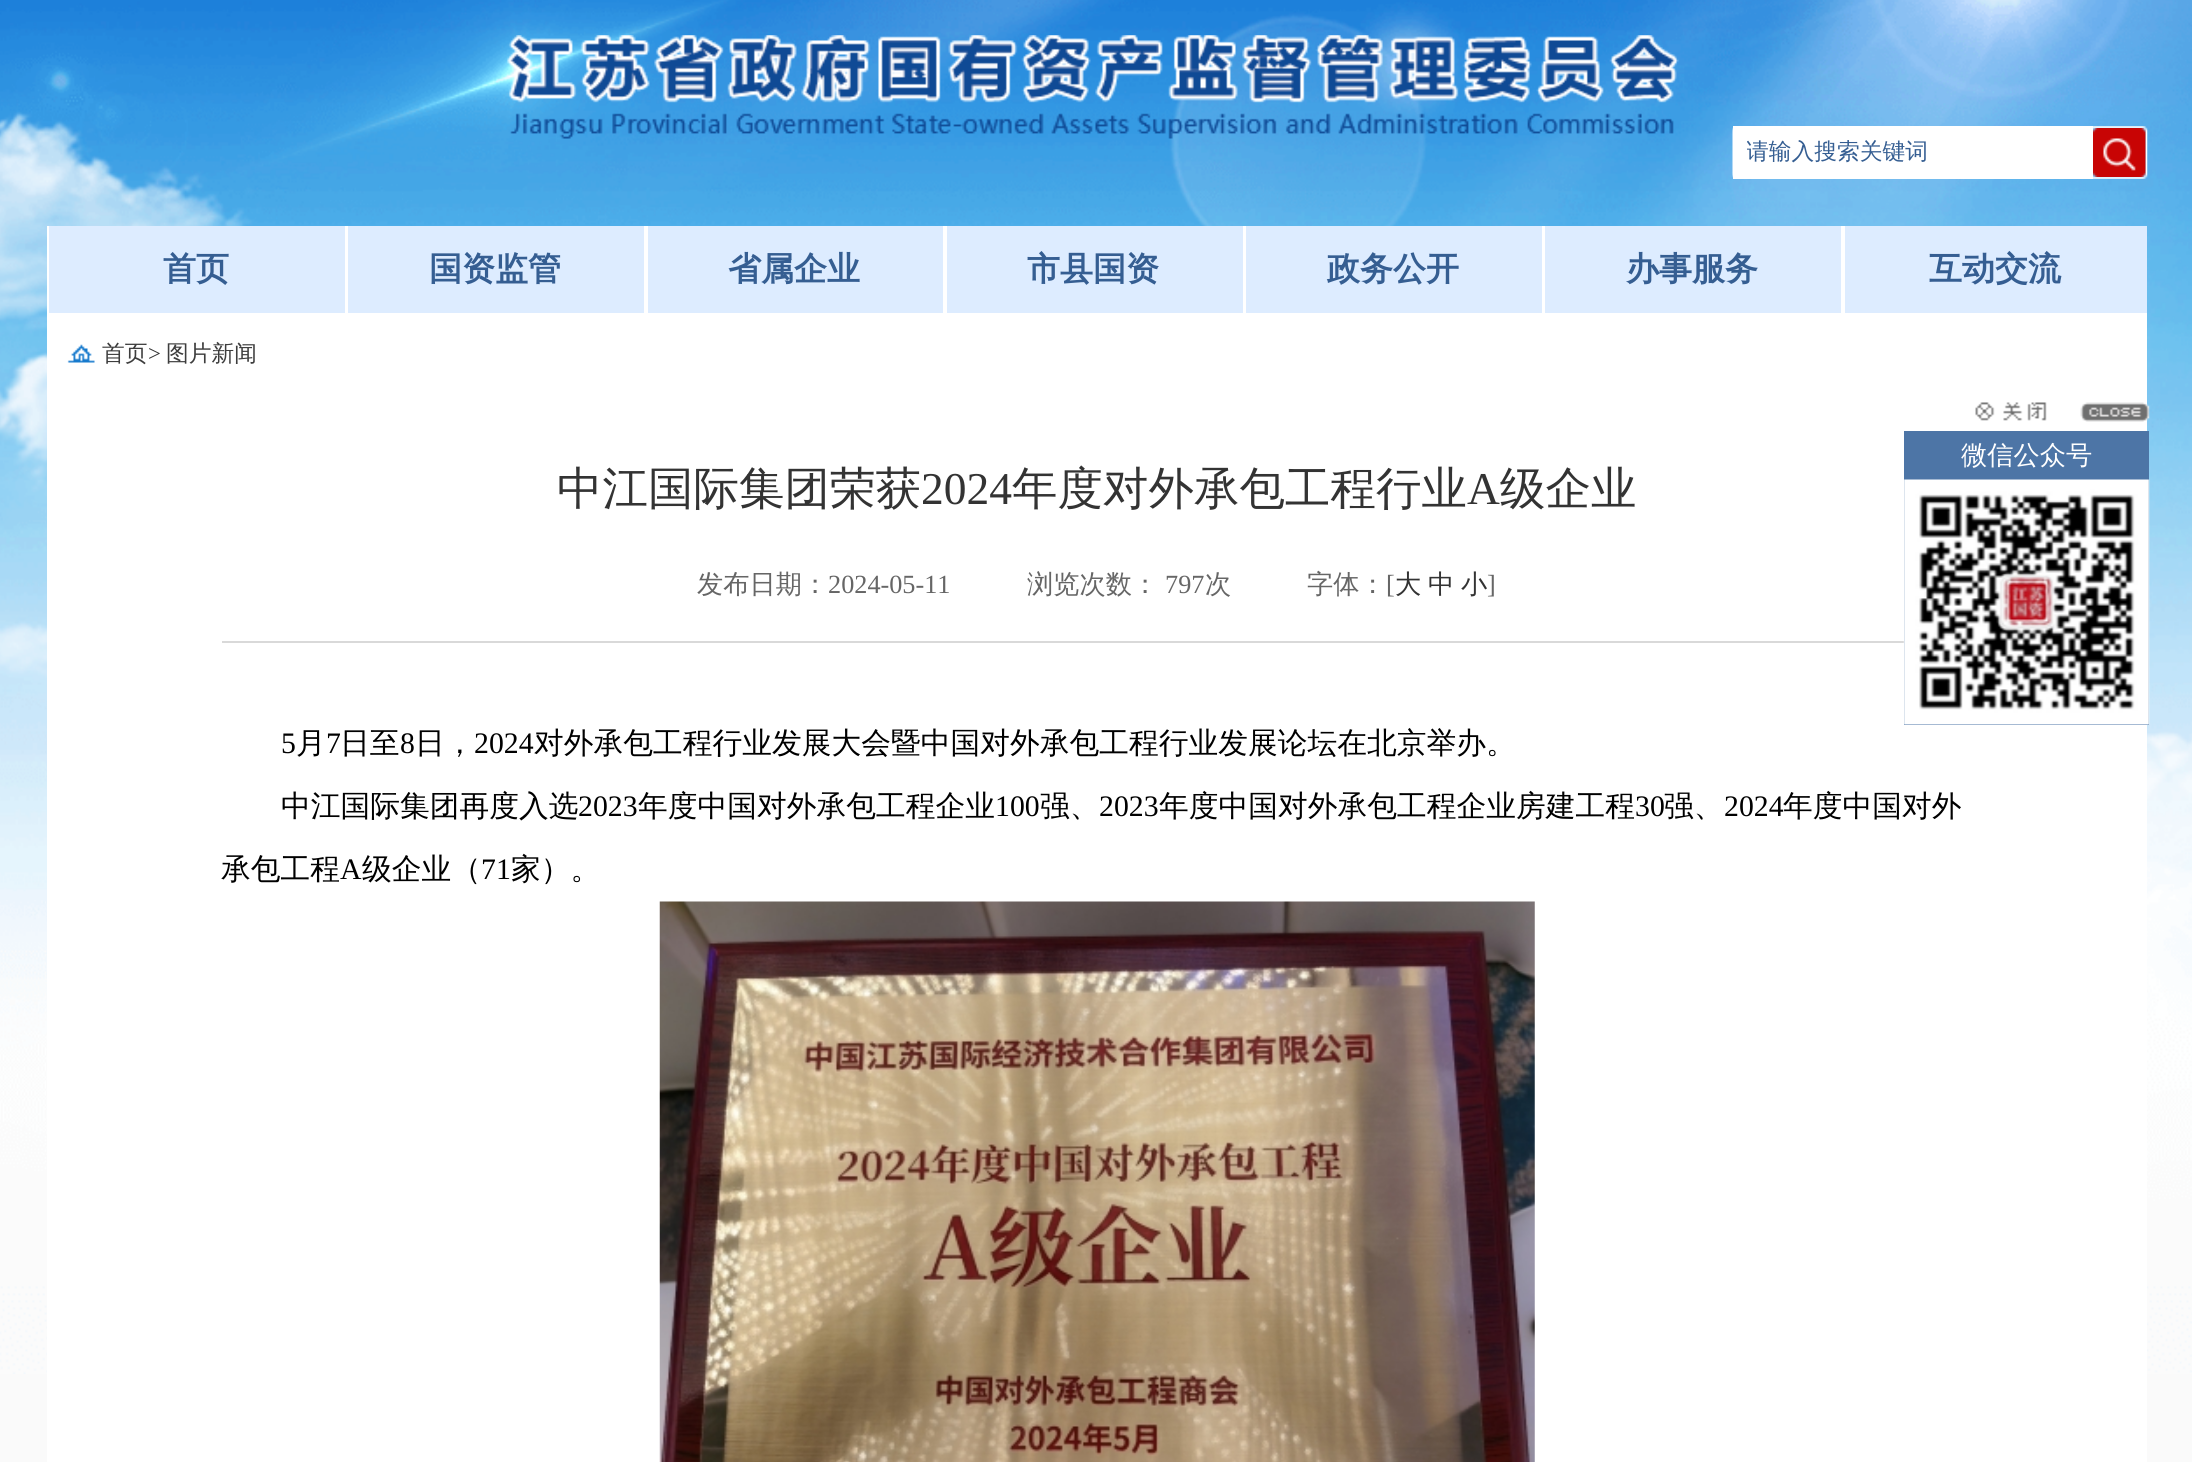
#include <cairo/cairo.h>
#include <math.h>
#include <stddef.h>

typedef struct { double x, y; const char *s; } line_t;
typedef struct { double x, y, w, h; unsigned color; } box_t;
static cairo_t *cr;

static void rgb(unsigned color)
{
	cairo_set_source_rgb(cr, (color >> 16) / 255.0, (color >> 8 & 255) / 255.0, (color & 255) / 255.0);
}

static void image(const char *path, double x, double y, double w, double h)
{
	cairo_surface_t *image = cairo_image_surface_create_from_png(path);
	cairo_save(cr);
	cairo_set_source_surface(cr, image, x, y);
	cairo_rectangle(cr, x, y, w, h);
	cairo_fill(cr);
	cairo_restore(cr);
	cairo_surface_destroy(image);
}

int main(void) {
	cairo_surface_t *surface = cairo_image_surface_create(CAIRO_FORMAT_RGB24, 2192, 1462);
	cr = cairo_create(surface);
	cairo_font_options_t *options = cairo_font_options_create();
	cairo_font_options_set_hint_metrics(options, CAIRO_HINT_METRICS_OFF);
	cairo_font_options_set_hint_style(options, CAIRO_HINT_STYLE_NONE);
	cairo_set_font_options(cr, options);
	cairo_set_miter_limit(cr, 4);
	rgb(0xfafafa);
	cairo_paint(cr);
	image("img/1.png", 0, 0, 2192, 1374);
	image("img/2.png", 507, 35, 1172, 104);
	image("img/3.png", 1732, 126, 416, 53);
	rgb(0xffffff);
	cairo_rectangle(cr, 1733, 126, 360, 53);
	cairo_fill(cr);
	image("img/4.png", 2093, 128, 53, 49);
	{
		static const box_t items[] = {
			{345, 226, 3, 87, 0xffffff},
			{47, 226, 2, 87, 0xffffff},
			{49, 226, 296, 87, 0xddecff},
			{644, 226, 4, 87, 0xffffff},
			{348, 226, 296, 87, 0xddecff},
			{943, 226, 4, 87, 0xffffff},
			{648, 226, 295, 87, 0xddecff},
			{1243, 226, 3, 87, 0xffffff},
			{947, 226, 296, 87, 0xddecff},
			{1542, 226, 3, 87, 0xffffff},
			{1246, 226, 296, 87, 0xddecff},
			{1841, 226, 4, 87, 0xffffff},
			{1545, 226, 296, 87, 0xddecff},
			{1845, 226, 302, 87, 0xddecff},
			{47, 313, 2100, 1149, 0xffffff},
		};
		for (size_t i = 0; i < sizeof items / sizeof *items; i++) {
			rgb(items[i].color);
			cairo_rectangle(cr, items[i].x, items[i].y, items[i].w, items[i].h);
			cairo_fill(cr);
		}
	}
	image("img/5.png", 67, 344, 28, 19);
	rgb(0x4d75a6);
	cairo_rectangle(cr, 1904, 431, 245, 294);
	cairo_fill(cr);
	image("img/6.png", 1975, 402, 175, 20);
	rgb(0xd9d9d9);
	cairo_rectangle(cr, 222, 641, 1682, 2);
	cairo_fill(cr);
	image("img/7.png", 1903, 479, 247, 246);
	image("img/8.png", 659, 901, 876, 561);
	cairo_save(cr);
	cairo_rectangle(cr, 1747, 126, 346, 53);
	cairo_clip(cr);
	cairo_select_font_face(cr, "WenQuanYi Zen Hei Medium", CAIRO_FONT_SLANT_NORMAL, CAIRO_FONT_WEIGHT_NORMAL);
	cairo_set_font_size(cr, 22.75);
	rgb(0x355e92);
	cairo_move_to(cr, 1746, 159);
	cairo_show_text(cr, "请输入搜索关键词");
	cairo_restore(cr);
	cairo_select_font_face(cr, "WenQuanYi Zen Hei", CAIRO_FONT_SLANT_NORMAL, CAIRO_FONT_WEIGHT_BOLD);
	cairo_set_font_size(cr, 33);
	rgb(0x355e92);
	{
		static const line_t items[] = {
			{163, 280, "首页"},
			{429, 280, "国资监管"},
			{728, 280, "省属企业"},
			{1027, 280, "市县国资"},
			{1327, 280, "政务公开"},
			{1626, 280, "办事服务"},
			{1929, 280, "互动交流"},
		};
		for (size_t i = 0; i < sizeof items / sizeof *items; i++) {
			cairo_move_to(cr, items[i].x, items[i].y);
			cairo_show_text(cr, items[i].s);
		}
	}
	cairo_select_font_face(cr, "WenQuanYi Zen Hei Medium", CAIRO_FONT_SLANT_NORMAL, CAIRO_FONT_WEIGHT_NORMAL);
	cairo_set_font_size(cr, 22.75);
	rgb(0x3d3d3d);
	cairo_move_to(cr, 102, 361);
	cairo_show_text(cr, "首页");
	cairo_select_font_face(cr, "Liberation Serif", CAIRO_FONT_SLANT_NORMAL, CAIRO_FONT_WEIGHT_NORMAL);
	rgb(0x333333);
	cairo_move_to(cr, 148, 361);
	cairo_show_text(cr, ">");
	cairo_select_font_face(cr, "WenQuanYi Zen Hei Medium", CAIRO_FONT_SLANT_NORMAL, CAIRO_FONT_WEIGHT_NORMAL);
	rgb(0x3d3d3d);
	cairo_move_to(cr, 166, 361);
	cairo_show_text(cr, "图片新闻");
	cairo_set_font_size(cr, 26.25);
	rgb(0xffffff);
	cairo_move_to(cr, 1961, 464);
	cairo_show_text(cr, "微信公众号");
	cairo_set_font_size(cr, 45.5);
	rgb(0x333333);
	cairo_move_to(cr, 557, 504);
	cairo_show_text(cr, "中江国际集团荣获");
	cairo_select_font_face(cr, "Liberation Serif", CAIRO_FONT_SLANT_NORMAL, CAIRO_FONT_WEIGHT_NORMAL);
	cairo_move_to(cr, 921, 504);
	cairo_show_text(cr, "2024");
	cairo_select_font_face(cr, "WenQuanYi Zen Hei Medium", CAIRO_FONT_SLANT_NORMAL, CAIRO_FONT_WEIGHT_NORMAL);
	cairo_move_to(cr, 1012, 504);
	cairo_show_text(cr, "年度对外承包工程行业");
	cairo_select_font_face(cr, "Liberation Serif", CAIRO_FONT_SLANT_NORMAL, CAIRO_FONT_WEIGHT_NORMAL);
	cairo_move_to(cr, 1467, 504);
	cairo_show_text(cr, "A");
	cairo_select_font_face(cr, "WenQuanYi Zen Hei Medium", CAIRO_FONT_SLANT_NORMAL, CAIRO_FONT_WEIGHT_NORMAL);
	cairo_move_to(cr, 1500, 504);
	cairo_show_text(cr, "级企业");
	cairo_set_font_size(cr, 26.25);
	rgb(0x666666);
	cairo_move_to(cr, 697, 593);
	cairo_show_text(cr, "发布日期：");
	cairo_select_font_face(cr, "Liberation Serif", CAIRO_FONT_SLANT_NORMAL, CAIRO_FONT_WEIGHT_NORMAL);
	cairo_move_to(cr, 828, 593);
	cairo_show_text(cr, "2024-05-11");
	cairo_select_font_face(cr, "WenQuanYi Zen Hei Medium", CAIRO_FONT_SLANT_NORMAL, CAIRO_FONT_WEIGHT_NORMAL);
	cairo_move_to(cr, 1027, 593);
	cairo_show_text(cr, "浏览次数：");
	cairo_select_font_face(cr, "Liberation Serif", CAIRO_FONT_SLANT_NORMAL, CAIRO_FONT_WEIGHT_NORMAL);
	cairo_move_to(cr, 1165, 593);
	cairo_show_text(cr, "797");
	cairo_select_font_face(cr, "WenQuanYi Zen Hei Medium", CAIRO_FONT_SLANT_NORMAL, CAIRO_FONT_WEIGHT_NORMAL);
	cairo_move_to(cr, 1205, 593);
	cairo_show_text(cr, "次");
	cairo_move_to(cr, 1307, 593);
	cairo_show_text(cr, "字体：");
	cairo_select_font_face(cr, "Liberation Serif", CAIRO_FONT_SLANT_NORMAL, CAIRO_FONT_WEIGHT_NORMAL);
	cairo_move_to(cr, 1386, 593);
	cairo_show_text(cr, "[");
	cairo_select_font_face(cr, "WenQuanYi Zen Hei Medium", CAIRO_FONT_SLANT_NORMAL, CAIRO_FONT_WEIGHT_NORMAL);
	rgb(0x333333);
	{
		static const line_t items[] = {
			{1395, 593, "大"},
			{1428, 593, "中"},
			{1461, 593, "小"},
		};
		for (size_t i = 0; i < sizeof items / sizeof *items; i++) {
			cairo_move_to(cr, items[i].x, items[i].y);
			cairo_show_text(cr, items[i].s);
		}
	}
	cairo_select_font_face(cr, "Liberation Serif", CAIRO_FONT_SLANT_NORMAL, CAIRO_FONT_WEIGHT_NORMAL);
	rgb(0x666666);
	cairo_move_to(cr, 1487, 593);
	cairo_show_text(cr, "]");
	cairo_set_font_size(cr, 29.75);
	rgb(0x000000);
	cairo_move_to(cr, 281, 753);
	cairo_show_text(cr, "5");
	cairo_select_font_face(cr, "WenQuanYi Zen Hei Medium", CAIRO_FONT_SLANT_NORMAL, CAIRO_FONT_WEIGHT_NORMAL);
	cairo_move_to(cr, 296, 753);
	cairo_show_text(cr, "月");
	cairo_select_font_face(cr, "Liberation Serif", CAIRO_FONT_SLANT_NORMAL, CAIRO_FONT_WEIGHT_NORMAL);
	cairo_move_to(cr, 326, 753);
	cairo_show_text(cr, "7");
	cairo_select_font_face(cr, "WenQuanYi Zen Hei Medium", CAIRO_FONT_SLANT_NORMAL, CAIRO_FONT_WEIGHT_NORMAL);
	cairo_move_to(cr, 340, 753);
	cairo_show_text(cr, "日至");
	cairo_select_font_face(cr, "Liberation Serif", CAIRO_FONT_SLANT_NORMAL, CAIRO_FONT_WEIGHT_NORMAL);
	cairo_move_to(cr, 400, 753);
	cairo_show_text(cr, "8");
	cairo_select_font_face(cr, "WenQuanYi Zen Hei Medium", CAIRO_FONT_SLANT_NORMAL, CAIRO_FONT_WEIGHT_NORMAL);
	cairo_move_to(cr, 415, 753);
	cairo_show_text(cr, "日，");
	cairo_select_font_face(cr, "Liberation Serif", CAIRO_FONT_SLANT_NORMAL, CAIRO_FONT_WEIGHT_NORMAL);
	cairo_move_to(cr, 474, 753);
	cairo_show_text(cr, "2024");
	cairo_select_font_face(cr, "WenQuanYi Zen Hei Medium", CAIRO_FONT_SLANT_NORMAL, CAIRO_FONT_WEIGHT_NORMAL);
	cairo_move_to(cr, 534, 753);
	cairo_show_text(cr, "对外承包工程行业发展大会暨中国对外承包工程行业发展论坛在北京举办。");
	cairo_move_to(cr, 281, 816);
	cairo_show_text(cr, "中江国际集团再度入选");
	cairo_select_font_face(cr, "Liberation Serif", CAIRO_FONT_SLANT_NORMAL, CAIRO_FONT_WEIGHT_NORMAL);
	cairo_move_to(cr, 578, 816);
	cairo_show_text(cr, "2023");
	cairo_select_font_face(cr, "WenQuanYi Zen Hei Medium", CAIRO_FONT_SLANT_NORMAL, CAIRO_FONT_WEIGHT_NORMAL);
	cairo_move_to(cr, 638, 816);
	cairo_show_text(cr, "年度中国对外承包工程企业");
	cairo_select_font_face(cr, "Liberation Serif", CAIRO_FONT_SLANT_NORMAL, CAIRO_FONT_WEIGHT_NORMAL);
	cairo_move_to(cr, 995, 816);
	cairo_show_text(cr, "100");
	cairo_select_font_face(cr, "WenQuanYi Zen Hei Medium", CAIRO_FONT_SLANT_NORMAL, CAIRO_FONT_WEIGHT_NORMAL);
	cairo_move_to(cr, 1040, 816);
	cairo_show_text(cr, "强、");
	cairo_select_font_face(cr, "Liberation Serif", CAIRO_FONT_SLANT_NORMAL, CAIRO_FONT_WEIGHT_NORMAL);
	cairo_move_to(cr, 1099, 816);
	cairo_show_text(cr, "2023");
	cairo_select_font_face(cr, "WenQuanYi Zen Hei Medium", CAIRO_FONT_SLANT_NORMAL, CAIRO_FONT_WEIGHT_NORMAL);
	cairo_move_to(cr, 1159, 816);
	cairo_show_text(cr, "年度中国对外承包工程企业房建工程");
	cairo_select_font_face(cr, "Liberation Serif", CAIRO_FONT_SLANT_NORMAL, CAIRO_FONT_WEIGHT_NORMAL);
	cairo_move_to(cr, 1635, 816);
	cairo_show_text(cr, "30");
	cairo_select_font_face(cr, "WenQuanYi Zen Hei Medium", CAIRO_FONT_SLANT_NORMAL, CAIRO_FONT_WEIGHT_NORMAL);
	cairo_move_to(cr, 1664, 816);
	cairo_show_text(cr, "强、");
	cairo_select_font_face(cr, "Liberation Serif", CAIRO_FONT_SLANT_NORMAL, CAIRO_FONT_WEIGHT_NORMAL);
	cairo_move_to(cr, 1724, 816);
	cairo_show_text(cr, "2024");
	cairo_select_font_face(cr, "WenQuanYi Zen Hei Medium", CAIRO_FONT_SLANT_NORMAL, CAIRO_FONT_WEIGHT_NORMAL);
	cairo_move_to(cr, 1783, 816);
	cairo_show_text(cr, "年度中国对外");
	cairo_move_to(cr, 221, 879);
	cairo_show_text(cr, "承包工程");
	cairo_select_font_face(cr, "Liberation Serif", CAIRO_FONT_SLANT_NORMAL, CAIRO_FONT_WEIGHT_NORMAL);
	cairo_move_to(cr, 340, 879);
	cairo_show_text(cr, "A");
	cairo_select_font_face(cr, "WenQuanYi Zen Hei Medium", CAIRO_FONT_SLANT_NORMAL, CAIRO_FONT_WEIGHT_NORMAL);
	cairo_move_to(cr, 362, 879);
	cairo_show_text(cr, "级企业（");
	cairo_select_font_face(cr, "Liberation Serif", CAIRO_FONT_SLANT_NORMAL, CAIRO_FONT_WEIGHT_NORMAL);
	cairo_move_to(cr, 481, 879);
	cairo_show_text(cr, "71");
	cairo_select_font_face(cr, "WenQuanYi Zen Hei Medium", CAIRO_FONT_SLANT_NORMAL, CAIRO_FONT_WEIGHT_NORMAL);
	cairo_move_to(cr, 511, 879);
	cairo_show_text(cr, "家）。");
	cairo_surface_write_to_png(surface, "page.png");
	cairo_font_options_destroy(options);
	cairo_destroy(cr);
	cairo_surface_destroy(surface);
	return 0;
}
